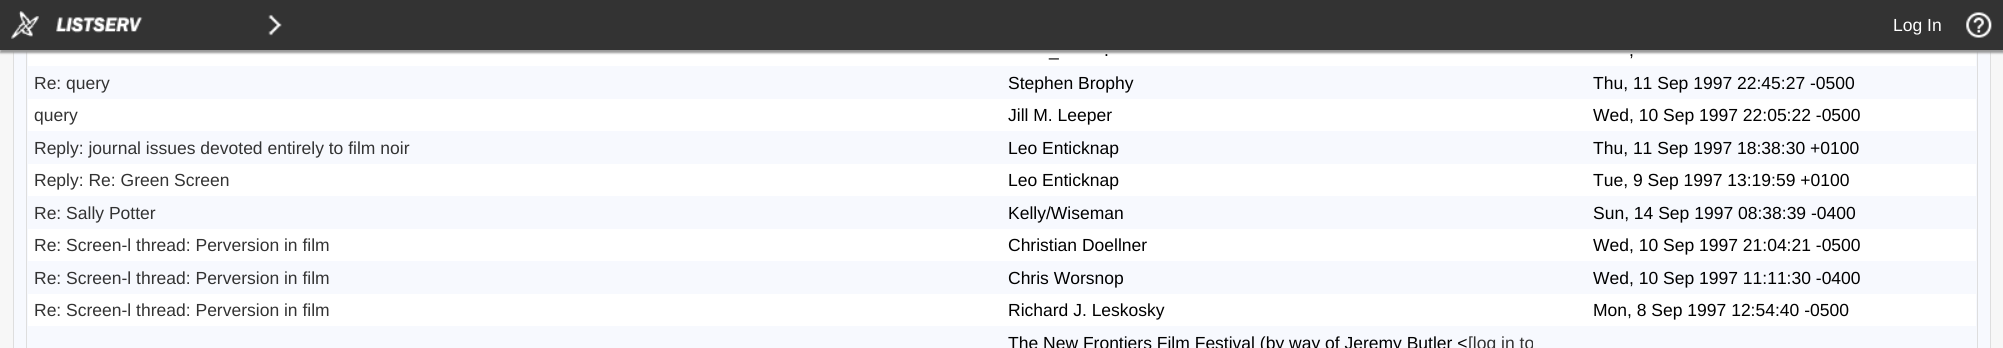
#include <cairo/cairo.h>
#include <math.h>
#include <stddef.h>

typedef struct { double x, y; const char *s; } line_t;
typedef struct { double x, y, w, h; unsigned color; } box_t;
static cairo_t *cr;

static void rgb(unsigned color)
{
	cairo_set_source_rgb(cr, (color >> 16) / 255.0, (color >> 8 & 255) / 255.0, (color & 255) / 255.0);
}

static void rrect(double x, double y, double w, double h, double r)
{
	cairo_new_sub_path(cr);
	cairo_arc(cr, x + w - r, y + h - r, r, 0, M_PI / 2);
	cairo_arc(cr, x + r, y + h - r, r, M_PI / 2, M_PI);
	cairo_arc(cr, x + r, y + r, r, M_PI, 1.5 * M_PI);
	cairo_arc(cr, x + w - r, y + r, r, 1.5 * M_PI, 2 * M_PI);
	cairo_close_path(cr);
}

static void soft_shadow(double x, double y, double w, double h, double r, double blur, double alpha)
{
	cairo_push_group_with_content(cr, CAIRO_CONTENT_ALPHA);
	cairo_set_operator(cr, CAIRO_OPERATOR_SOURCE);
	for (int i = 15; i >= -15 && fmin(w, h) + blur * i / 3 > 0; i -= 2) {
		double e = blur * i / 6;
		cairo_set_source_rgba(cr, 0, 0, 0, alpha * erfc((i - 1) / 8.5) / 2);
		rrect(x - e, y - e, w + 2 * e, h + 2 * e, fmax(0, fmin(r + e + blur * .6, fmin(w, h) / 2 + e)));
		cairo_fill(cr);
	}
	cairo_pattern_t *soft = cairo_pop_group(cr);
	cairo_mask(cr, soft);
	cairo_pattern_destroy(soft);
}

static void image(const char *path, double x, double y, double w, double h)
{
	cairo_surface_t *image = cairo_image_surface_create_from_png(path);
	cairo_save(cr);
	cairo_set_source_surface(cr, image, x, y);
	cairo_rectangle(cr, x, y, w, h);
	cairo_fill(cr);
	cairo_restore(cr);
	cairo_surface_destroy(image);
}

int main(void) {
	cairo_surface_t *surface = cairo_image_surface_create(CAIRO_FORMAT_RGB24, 2003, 348);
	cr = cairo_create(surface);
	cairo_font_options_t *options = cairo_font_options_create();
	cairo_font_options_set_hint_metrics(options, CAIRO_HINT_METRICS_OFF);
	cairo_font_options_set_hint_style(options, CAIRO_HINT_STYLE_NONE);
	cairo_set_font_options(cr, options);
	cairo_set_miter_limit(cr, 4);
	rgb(0xf7f7f7);
	cairo_paint(cr);
	rgb(0xf7f9fe);
	cairo_rectangle(cr, 14, 51, 1976, 297);
	cairo_fill(cr);
	cairo_rectangle(cr, 13.5, -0.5, 1977, 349);
	rgb(0xdedede);
	cairo_set_line_width(cr, 1);
	cairo_stroke(cr);
	cairo_rectangle(cr, 26.5, -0.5, 1951, 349);
	cairo_stroke(cr);
	rgb(0xffffff);
	cairo_rectangle(cr, 28, 51, 1948, 15);
	cairo_fill(cr);
	rgb(0x999999);
	soft_shadow(0, 3, 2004, 50, 0, 1, 1);
	rgb(0x333333);
	cairo_rectangle(cr, 0, 0, 2003, 50);
	cairo_fill(cr);
	image("img/1.png", 11, 11, 28, 28);
	image("img/2.png", 56, 17, 87, 16);
	image("img/3.png", 268, 14, 14, 22);
	image("img/4.png", 1966, 12, 26, 26);
	{
		static const box_t items[] = {
			{28, 99, 1948, 32, 0xffffff},
			{28, 164, 1948, 32, 0xffffff},
			{28, 229, 1948, 32, 0xffffff},
			{28, 294, 1948, 32, 0xffffff},
		};
		for (size_t i = 0; i < sizeof items / sizeof *items; i++) {
			rgb(items[i].color);
			cairo_rectangle(cr, items[i].x, items[i].y, items[i].w, items[i].h);
			cairo_fill(cr);
		}
	}
	cairo_select_font_face(cr, "Liberation Sans", CAIRO_FONT_SLANT_NORMAL, CAIRO_FONT_WEIGHT_NORMAL);
	cairo_set_font_size(cr, 17.5);
	cairo_move_to(cr, 1893, 31);
	cairo_show_text(cr, "Log In");
	rgb(0x000000);
	{
		static const line_t items[] = {
			{1104, 56, "."},
			{1049, 56, "_"},
			{1629, 56, ","},
		};
		for (size_t i = 0; i < sizeof items / sizeof *items; i++) {
			cairo_move_to(cr, items[i].x, items[i].y);
			cairo_show_text(cr, items[i].s);
		}
	}
	rgb(0x333333);
	cairo_move_to(cr, 34, 89);
	cairo_show_text(cr, "Re: query");
	rgb(0x000000);
	cairo_move_to(cr, 1008, 89);
	cairo_show_text(cr, "Stephen Brophy");
	cairo_move_to(cr, 1593, 89);
	cairo_show_text(cr, "Thu, 11 Sep 1997 22:45:27 -0500");
	rgb(0x333333);
	cairo_move_to(cr, 34, 121);
	cairo_show_text(cr, "query");
	rgb(0x000000);
	cairo_move_to(cr, 1008, 121);
	cairo_show_text(cr, "Jill M. Leeper");
	cairo_move_to(cr, 1593, 121);
	cairo_show_text(cr, "Wed, 10 Sep 1997 22:05:22 -0500");
	rgb(0x333333);
	cairo_move_to(cr, 34, 154);
	cairo_show_text(cr, "Reply: journal issues devoted entirely to film noir");
	rgb(0x000000);
	cairo_move_to(cr, 1008, 154);
	cairo_show_text(cr, "Leo Enticknap");
	cairo_move_to(cr, 1593, 154);
	cairo_show_text(cr, "Thu, 11 Sep 1997 18:38:30 +0100");
	rgb(0x333333);
	cairo_move_to(cr, 34, 186);
	cairo_show_text(cr, "Reply: Re: Green Screen");
	rgb(0x000000);
	cairo_move_to(cr, 1008, 186);
	cairo_show_text(cr, "Leo Enticknap");
	cairo_move_to(cr, 1593, 186);
	cairo_show_text(cr, "Tue, 9 Sep 1997 13:19:59 +0100");
	rgb(0x333333);
	cairo_move_to(cr, 34, 219);
	cairo_show_text(cr, "Re: Sally Potter");
	rgb(0x000000);
	cairo_move_to(cr, 1008, 219);
	cairo_show_text(cr, "Kelly/Wiseman");
	cairo_move_to(cr, 1593, 219);
	cairo_show_text(cr, "Sun, 14 Sep 1997 08:38:39 -0400");
	rgb(0x333333);
	cairo_move_to(cr, 34, 251);
	cairo_show_text(cr, "Re: Screen-l thread: Perversion in film");
	rgb(0x000000);
	cairo_move_to(cr, 1008, 251);
	cairo_show_text(cr, "Christian Doellner");
	cairo_move_to(cr, 1593, 251);
	cairo_show_text(cr, "Wed, 10 Sep 1997 21:04:21 -0500");
	rgb(0x333333);
	cairo_move_to(cr, 34, 284);
	cairo_show_text(cr, "Re: Screen-l thread: Perversion in film");
	rgb(0x000000);
	cairo_move_to(cr, 1008, 284);
	cairo_show_text(cr, "Chris Worsnop");
	cairo_move_to(cr, 1593, 284);
	cairo_show_text(cr, "Wed, 10 Sep 1997 11:11:30 -0400");
	rgb(0x333333);
	cairo_move_to(cr, 34, 316);
	cairo_show_text(cr, "Re: Screen-l thread: Perversion in film");
	rgb(0x000000);
	{
		static const line_t items[] = {
			{1008, 316, "Richard J. Leskosky"},
			{1593, 316, "Mon, 8 Sep 1997 12:54:40 -0500"},
			{1008, 349, "The New Frontiers Film Festival (by way of Jeremy Butler <"},
		};
		for (size_t i = 0; i < sizeof items / sizeof *items; i++) {
			cairo_move_to(cr, items[i].x, items[i].y);
			cairo_show_text(cr, items[i].s);
		}
	}
	rgb(0x333333);
	cairo_move_to(cr, 1468, 349);
	cairo_show_text(cr, "[log in to");
	cairo_surface_write_to_png(surface, "page.png");
	cairo_font_options_destroy(options);
	cairo_destroy(cr);
	cairo_surface_destroy(surface);
	return 0;
}
